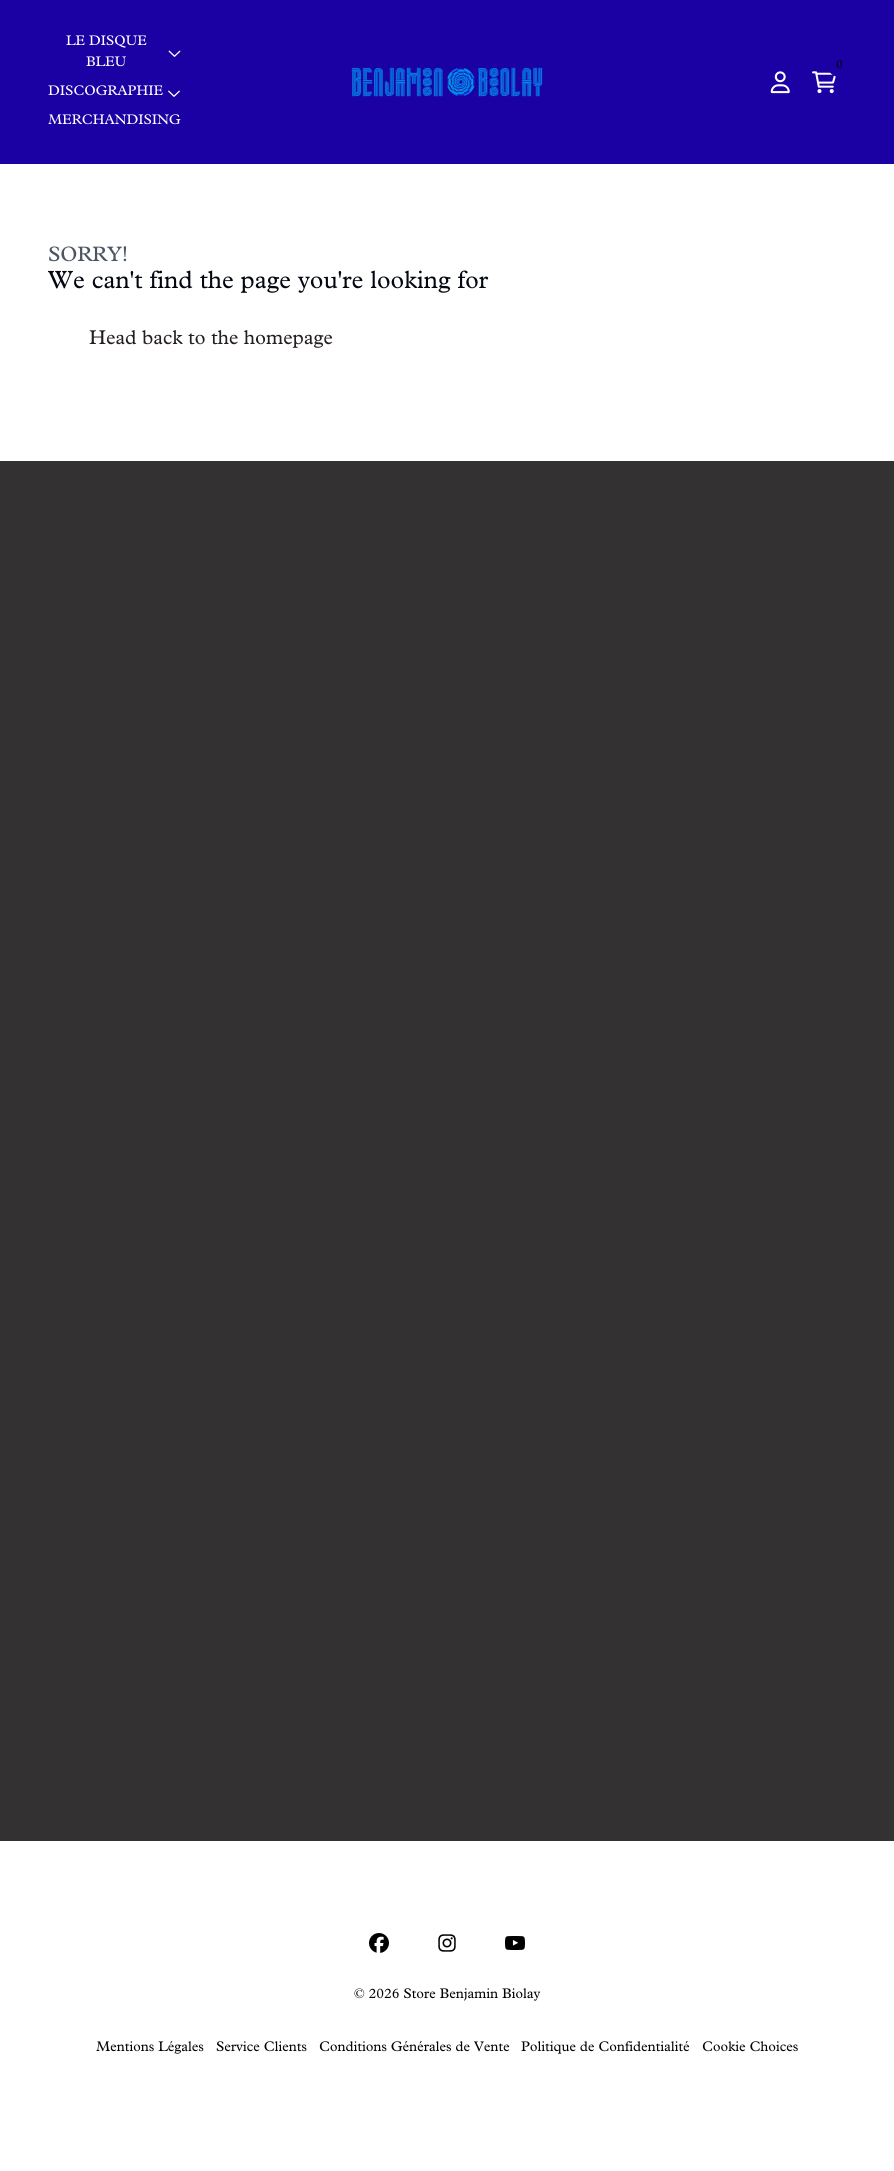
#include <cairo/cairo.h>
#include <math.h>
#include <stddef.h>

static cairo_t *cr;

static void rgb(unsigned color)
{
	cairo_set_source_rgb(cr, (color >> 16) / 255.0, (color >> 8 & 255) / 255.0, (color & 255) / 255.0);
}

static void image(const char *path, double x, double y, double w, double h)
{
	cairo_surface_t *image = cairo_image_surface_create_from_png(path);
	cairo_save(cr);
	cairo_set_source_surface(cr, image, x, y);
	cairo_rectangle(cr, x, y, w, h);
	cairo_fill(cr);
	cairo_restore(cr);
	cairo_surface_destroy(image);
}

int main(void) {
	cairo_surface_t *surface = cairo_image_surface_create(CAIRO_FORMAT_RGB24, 894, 2171);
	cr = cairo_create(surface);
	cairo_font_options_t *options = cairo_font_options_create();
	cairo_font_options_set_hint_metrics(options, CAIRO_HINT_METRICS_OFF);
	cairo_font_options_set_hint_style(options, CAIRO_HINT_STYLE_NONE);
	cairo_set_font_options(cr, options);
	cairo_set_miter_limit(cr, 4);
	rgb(0xffffff);
	cairo_paint(cr);
	rgb(0x1b00a3);
	cairo_rectangle(cr, 0, 0, 894, 164);
	cairo_fill(cr);
	image("img/1.png", 66, 35, 81, 13);
	image("img/2.png", 168, 50, 13, 7);
	image("img/3.png", 86, 56, 40, 11);
	image("img/4.png", 48, 85, 115, 11);
	image("img/5.png", 168, 90, 12, 7);
	image("img/6.png", 48, 114, 133, 11);
	image("img/7.png", 351, 67, 192, 30);
	image("img/8.png", 770, 71, 20, 23);
	image("img/10.png", 812, 71, 24, 23);
	cairo_arc(cr, 839, 66, 11, 0, 2 * M_PI);
	cairo_fill(cr);
	image("img/9.png", 836, 60, 6, 9);
	rgb(0x333131);
	cairo_rectangle(cr, 0, 461, 894, 1380);
	cairo_fill(cr);
	image("img/11.png", 49, 246, 78, 16);
	image("img/12.png", 48, 270, 441, 23);
	image("img/13.png", 89, 330, 244, 18);
	image("img/14.png", 369, 1933, 20, 20);
	image("img/15.png", 438, 1934, 18, 18);
	image("img/16.png", 505, 1936, 20, 14);
	image("img/17.png", 354, 1988, 187, 13);
	image("img/18.png", 96, 2041, 108, 13);
	image("img/19.png", 216, 2041, 91, 11);
	image("img/20.png", 319, 2041, 191, 11);
	image("img/21.png", 521, 2041, 169, 13);
	image("img/22.png", 702, 2041, 96, 11);
	cairo_surface_write_to_png(surface, "page.png");
	cairo_font_options_destroy(options);
	cairo_destroy(cr);
	cairo_surface_destroy(surface);
	return 0;
}
